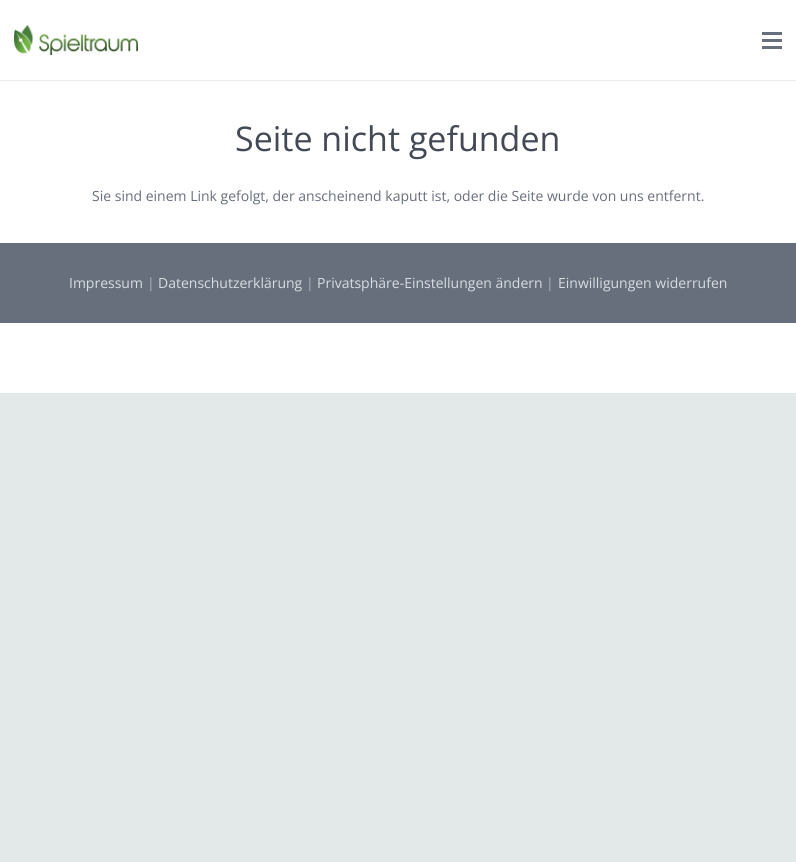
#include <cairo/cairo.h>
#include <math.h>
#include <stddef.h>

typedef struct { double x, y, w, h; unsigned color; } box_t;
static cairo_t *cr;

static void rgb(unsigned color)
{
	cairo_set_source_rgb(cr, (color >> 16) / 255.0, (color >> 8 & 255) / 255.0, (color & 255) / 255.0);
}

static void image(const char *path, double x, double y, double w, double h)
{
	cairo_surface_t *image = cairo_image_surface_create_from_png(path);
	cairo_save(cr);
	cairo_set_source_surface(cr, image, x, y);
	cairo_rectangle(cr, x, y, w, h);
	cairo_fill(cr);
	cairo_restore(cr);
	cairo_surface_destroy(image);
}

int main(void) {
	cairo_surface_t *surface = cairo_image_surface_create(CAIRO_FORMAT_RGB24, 796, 862);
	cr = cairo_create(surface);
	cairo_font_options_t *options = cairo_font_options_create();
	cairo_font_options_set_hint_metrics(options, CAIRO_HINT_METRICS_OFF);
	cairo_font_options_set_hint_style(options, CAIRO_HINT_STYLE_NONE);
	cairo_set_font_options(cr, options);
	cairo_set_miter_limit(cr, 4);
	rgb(0xe3e8e8);
	cairo_paint(cr);
	rgb(0xffffff);
	cairo_rectangle(cr, 0, 0, 796, 243);
	cairo_fill(cr);
	rgb(0xebebeb);
	cairo_rectangle(cr, 0, 80, 796, 1);
	cairo_fill(cr);
	image("img/1.png", 14, 25, 124, 30);
	{
		static const box_t items[] = {
			{762, 39, 20, 3, 0x676f7c},
			{762, 32, 20, 3, 0x676f7c},
			{762, 46, 20, 3, 0x676f7c},
			{0, 323, 796, 70, 0xffffff},
			{0, 243, 796, 80, 0x676f7c},
		};
		for (size_t i = 0; i < sizeof items / sizeof *items; i++) {
			rgb(items[i].color);
			cairo_rectangle(cr, items[i].x, items[i].y, items[i].w, items[i].h);
			cairo_fill(cr);
		}
	}
	cairo_select_font_face(cr, "Open Sans", CAIRO_FONT_SLANT_NORMAL, CAIRO_FONT_WEIGHT_NORMAL);
	cairo_set_font_size(cr, 34);
	rgb(0x434955);
	cairo_move_to(cr, 235, 151);
	cairo_show_text(cr, "Seite nicht gefunden");
	cairo_set_font_size(cr, 14);
	rgb(0x676f7c);
	cairo_move_to(cr, 92, 201);
	cairo_show_text(cr, "Sie sind einem Link gefolgt, der anscheinend kaputt ist, oder die Seite wurde von uns entfernt.");
	rgb(0xd7dde0);
	cairo_move_to(cr, 69, 288);
	cairo_show_text(cr, "Impressum");
	rgb(0xaab2bd);
	cairo_move_to(cr, 147, 288);
	cairo_show_text(cr, "|");
	rgb(0xd7dde0);
	cairo_move_to(cr, 158, 288);
	cairo_show_text(cr, "Datenschutzerklärung");
	rgb(0xaab2bd);
	cairo_move_to(cr, 306, 288);
	cairo_show_text(cr, "|");
	rgb(0xd7dde0);
	cairo_move_to(cr, 317, 288);
	cairo_show_text(cr, "Privatsphäre-Einstellungen ändern");
	rgb(0xaab2bd);
	cairo_move_to(cr, 546, 288);
	cairo_show_text(cr, "|");
	rgb(0xd7dde0);
	cairo_move_to(cr, 558, 288);
	cairo_show_text(cr, "Einwilligungen widerrufen");
	cairo_surface_write_to_png(surface, "page.png");
	cairo_font_options_destroy(options);
	cairo_destroy(cr);
	cairo_surface_destroy(surface);
	return 0;
}
